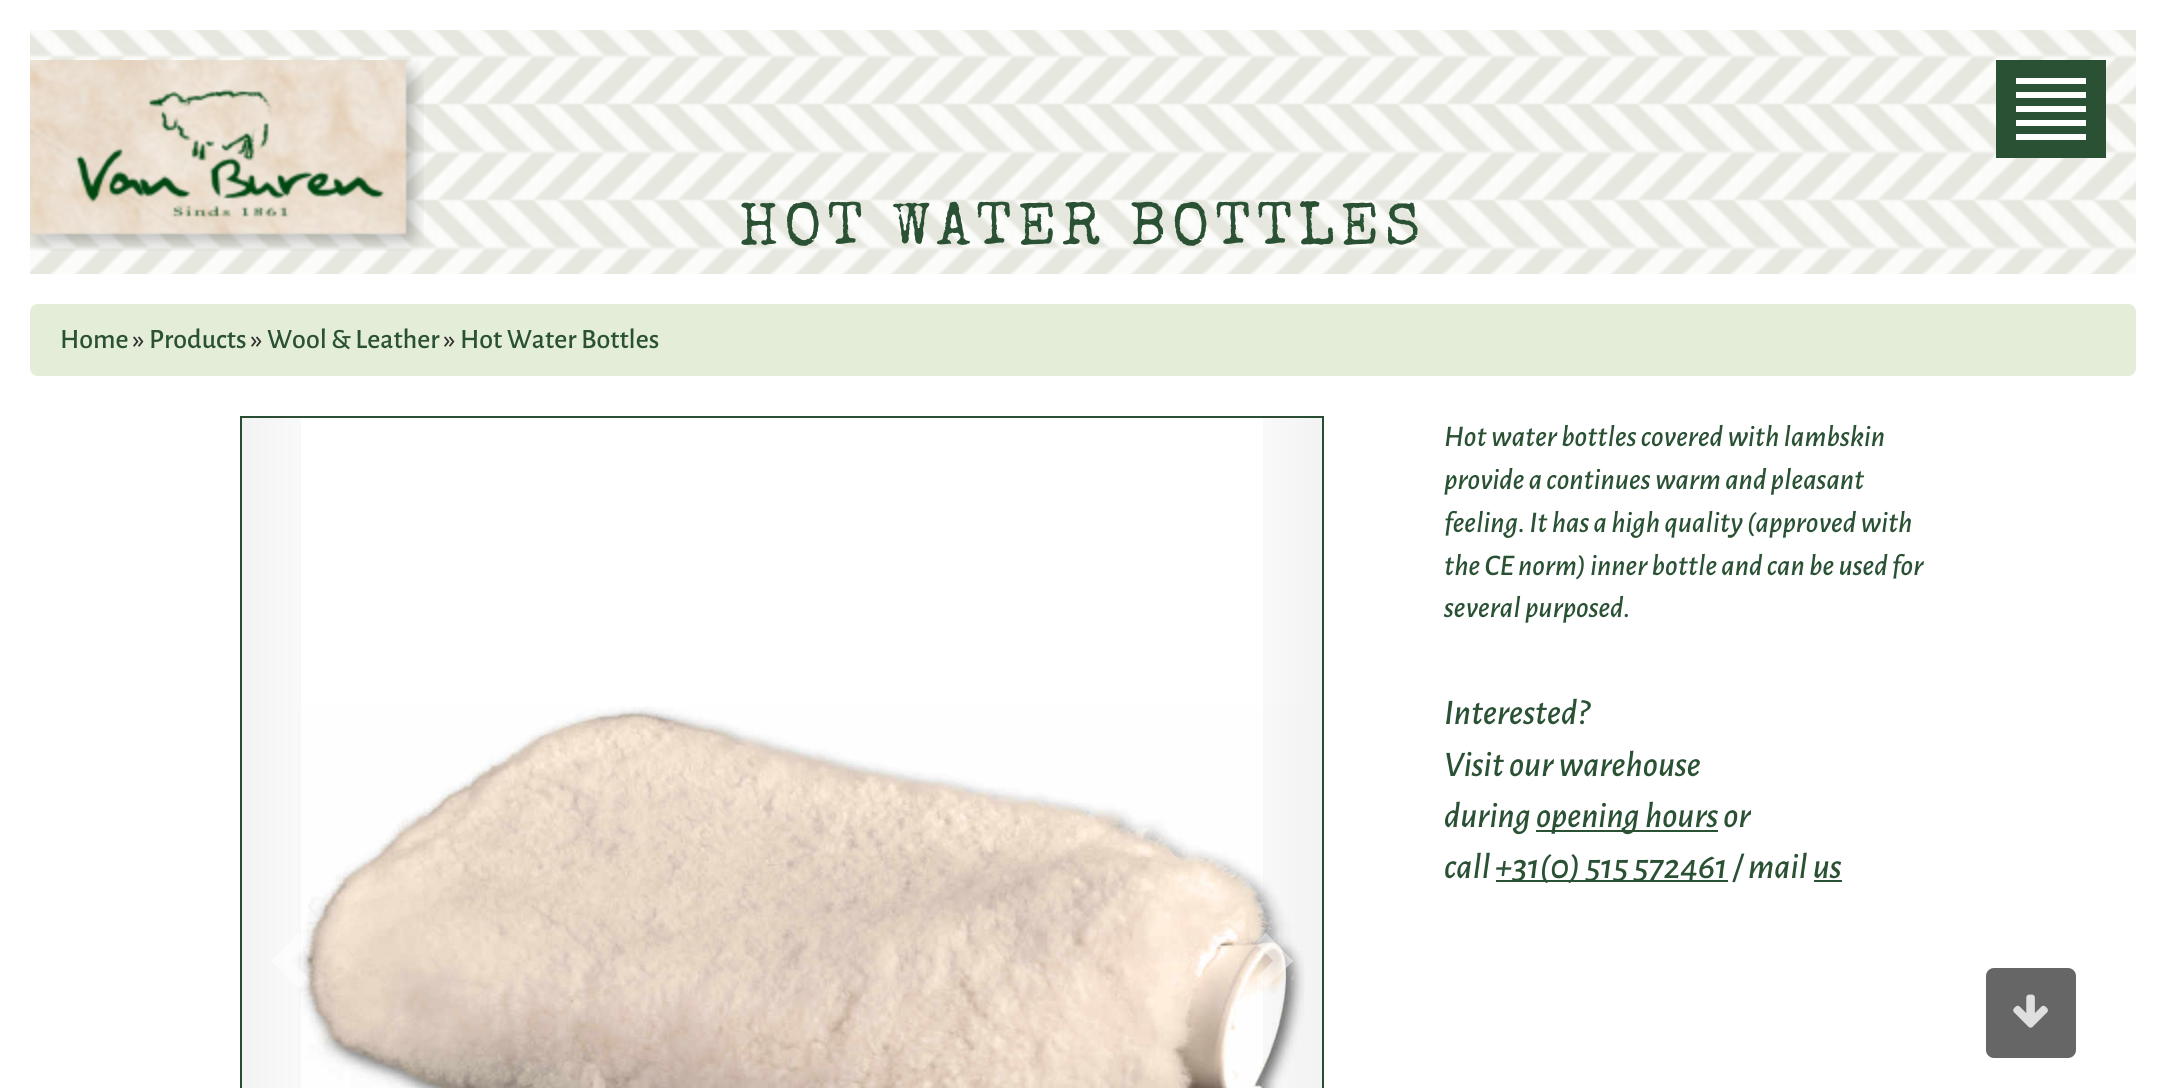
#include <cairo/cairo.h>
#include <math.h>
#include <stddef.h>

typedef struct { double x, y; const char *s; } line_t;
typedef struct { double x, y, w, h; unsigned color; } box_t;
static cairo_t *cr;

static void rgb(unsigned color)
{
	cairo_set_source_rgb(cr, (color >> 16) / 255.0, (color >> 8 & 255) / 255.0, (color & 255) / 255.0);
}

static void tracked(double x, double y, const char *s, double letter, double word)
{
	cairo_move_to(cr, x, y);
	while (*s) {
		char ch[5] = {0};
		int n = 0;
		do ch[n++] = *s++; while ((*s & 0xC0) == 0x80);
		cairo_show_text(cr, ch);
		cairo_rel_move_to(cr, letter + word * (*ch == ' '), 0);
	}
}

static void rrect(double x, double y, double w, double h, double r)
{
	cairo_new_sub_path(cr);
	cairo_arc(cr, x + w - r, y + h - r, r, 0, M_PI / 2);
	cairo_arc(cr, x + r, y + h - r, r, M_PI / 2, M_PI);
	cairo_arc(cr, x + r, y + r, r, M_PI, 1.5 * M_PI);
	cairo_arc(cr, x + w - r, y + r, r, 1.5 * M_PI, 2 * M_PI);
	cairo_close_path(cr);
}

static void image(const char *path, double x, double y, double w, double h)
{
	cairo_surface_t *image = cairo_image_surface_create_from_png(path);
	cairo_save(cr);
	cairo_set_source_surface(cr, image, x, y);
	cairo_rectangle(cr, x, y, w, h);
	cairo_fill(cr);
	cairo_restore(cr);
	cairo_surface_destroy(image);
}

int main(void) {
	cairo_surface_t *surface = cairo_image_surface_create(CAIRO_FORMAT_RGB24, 2165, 1088);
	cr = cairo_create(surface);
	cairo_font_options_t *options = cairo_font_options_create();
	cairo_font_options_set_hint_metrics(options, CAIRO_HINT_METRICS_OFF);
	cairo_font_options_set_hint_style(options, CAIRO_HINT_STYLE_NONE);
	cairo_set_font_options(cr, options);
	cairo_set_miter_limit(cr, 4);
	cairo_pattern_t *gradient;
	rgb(0xffffff);
	cairo_paint(cr);
	image("img/1.png", 30, 30, 2106, 244);
	{
		static const box_t items[] = {
			{1996, 60, 110, 98, 0x2a5134},
			{2016, 78, 70, 6, 0xffffff},
			{2016, 92, 70, 6, 0xffffff},
			{2016, 106, 70, 6, 0xffffff},
			{2016, 120, 70, 6, 0xffffff},
			{2016, 134, 70, 6, 0xffffff},
		};
		for (size_t i = 0; i < sizeof items / sizeof *items; i++) {
			rgb(items[i].color);
			cairo_rectangle(cr, items[i].x, items[i].y, items[i].w, items[i].h);
			cairo_fill(cr);
		}
	}
	image("img/2.png", 30, 60, 394, 191);
	rgb(0xe4edd8);
	rrect(30, 304, 2106, 72, 8);
	cairo_fill(cr);
	cairo_rectangle(cr, 241, 417, 1082, 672);
	rgb(0x2c5037);
	cairo_stroke(cr);
	image("img/3.png", 297, 706, 1008, 382);
	gradient = cairo_pattern_create_linear(240, 958, 348, 958);
	cairo_pattern_add_color_stop_rgba(gradient, 0, 0, 0, 0, 0.05);
	cairo_pattern_add_color_stop_rgba(gradient, 1, 0, 0, 0, 0);
	cairo_set_source(cr, gradient);
	cairo_pattern_destroy(gradient);
	cairo_rectangle(cr, 240, 416, 61, 672);
	cairo_fill(cr);
	cairo_set_source_rgba(cr, 1, 1, 1, 0.5);
	cairo_new_path(cr);
	cairo_move_to(cr, 308, 943);
	cairo_line_to(cr, 291, 961);
	cairo_line_to(cr, 308, 978);
	cairo_line_to(cr, 298, 988);
	cairo_line_to(cr, 271, 961);
	cairo_line_to(cr, 298, 933);
	cairo_close_path(cr);
	cairo_fill(cr);
	gradient = cairo_pattern_create_linear(1216, 958, 1324, 958);
	cairo_pattern_add_color_stop_rgba(gradient, 0, 0, 0, 0, 0);
	cairo_pattern_add_color_stop_rgba(gradient, 1, 0, 0, 0, 0.05);
	cairo_set_source(cr, gradient);
	cairo_pattern_destroy(gradient);
	cairo_rectangle(cr, 1263, 416, 61, 672);
	cairo_fill(cr);
	cairo_set_source_rgba(cr, 1, 1, 1, 0.5);
	cairo_new_path(cr);
	cairo_move_to(cr, 1293, 961);
	cairo_line_to(cr, 1266, 988);
	cairo_line_to(cr, 1256, 978);
	cairo_line_to(cr, 1273, 961);
	cairo_line_to(cr, 1256, 943);
	cairo_line_to(cr, 1266, 933);
	cairo_close_path(cr);
	cairo_fill(cr);
	{
		static const box_t items[] = {
			{1536, 830, 182, 2, 0x2a5134},
			{1496, 880, 232, 2, 0x2a5134},
			{1814, 880, 28, 2, 0x2a5134},
		};
		for (size_t i = 0; i < sizeof items / sizeof *items; i++) {
			rgb(items[i].color);
			cairo_rectangle(cr, items[i].x, items[i].y, items[i].w, items[i].h);
			cairo_fill(cr);
		}
	}
	rgb(0x666666);
	rrect(1986, 968, 90, 90, 8);
	cairo_fill(cr);
	image("img/4.png", 2013, 994, 35, 34);
	cairo_select_font_face(cr, "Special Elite", CAIRO_FONT_SLANT_NORMAL, CAIRO_FONT_WEIGHT_NORMAL);
	cairo_set_font_size(cr, 60);
	rgb(0x2a5134);
	tracked(739, 244, "HOT WATER BOTTLES", 6, 0);
	cairo_select_font_face(cr, "Alegreya Sans Medium", CAIRO_FONT_SLANT_NORMAL, CAIRO_FONT_WEIGHT_NORMAL);
	cairo_set_font_size(cr, 28);
	cairo_move_to(cr, 60, 348);
	cairo_show_text(cr, "Home");
	rgb(0x333333);
	cairo_move_to(cr, 133, 348);
	cairo_show_text(cr, "»");
	rgb(0x2a5134);
	cairo_move_to(cr, 149, 348);
	cairo_show_text(cr, "Products");
	rgb(0x333333);
	cairo_move_to(cr, 251, 348);
	cairo_show_text(cr, "»");
	rgb(0x2a5134);
	cairo_move_to(cr, 267, 348);
	cairo_show_text(cr, "Wool & Leather");
	rgb(0x333333);
	cairo_move_to(cr, 444, 348);
	cairo_show_text(cr, "»");
	rgb(0x2a5134);
	cairo_move_to(cr, 460, 348);
	cairo_show_text(cr, "Hot Water Bottles");
	cairo_select_font_face(cr, "Alegreya Sans Medium", CAIRO_FONT_SLANT_ITALIC, CAIRO_FONT_WEIGHT_NORMAL);
	cairo_set_font_size(cr, 30);
	{
		static const line_t items[] = {
			{1444, 446, "Hot water bottles covered with lambskin"},
			{1444, 489, "provide a continues warm and pleasant"},
			{1444, 532, "feeling. It has a high quality (approved with"},
			{1444, 575, "the CE norm) inner bottle and can be used for"},
			{1444, 617, "several purposed."},
		};
		for (size_t i = 0; i < sizeof items / sizeof *items; i++) {
			cairo_move_to(cr, items[i].x, items[i].y);
			cairo_show_text(cr, items[i].s);
		}
	}
	cairo_set_font_size(cr, 36);
	{
		static const line_t items[] = {
			{1444, 724, "Interested?"},
			{1444, 776, "Visit our warehouse"},
			{1444, 827, "during"},
			{1536, 827, "opening hours or"},
			{1444, 878, "call"},
			{1495, 878, "+31(0) 515 572461 / mail us"},
		};
		for (size_t i = 0; i < sizeof items / sizeof *items; i++) {
			cairo_move_to(cr, items[i].x, items[i].y);
			cairo_show_text(cr, items[i].s);
		}
	}
	cairo_surface_write_to_png(surface, "page.png");
	cairo_font_options_destroy(options);
	cairo_destroy(cr);
	cairo_surface_destroy(surface);
	return 0;
}
